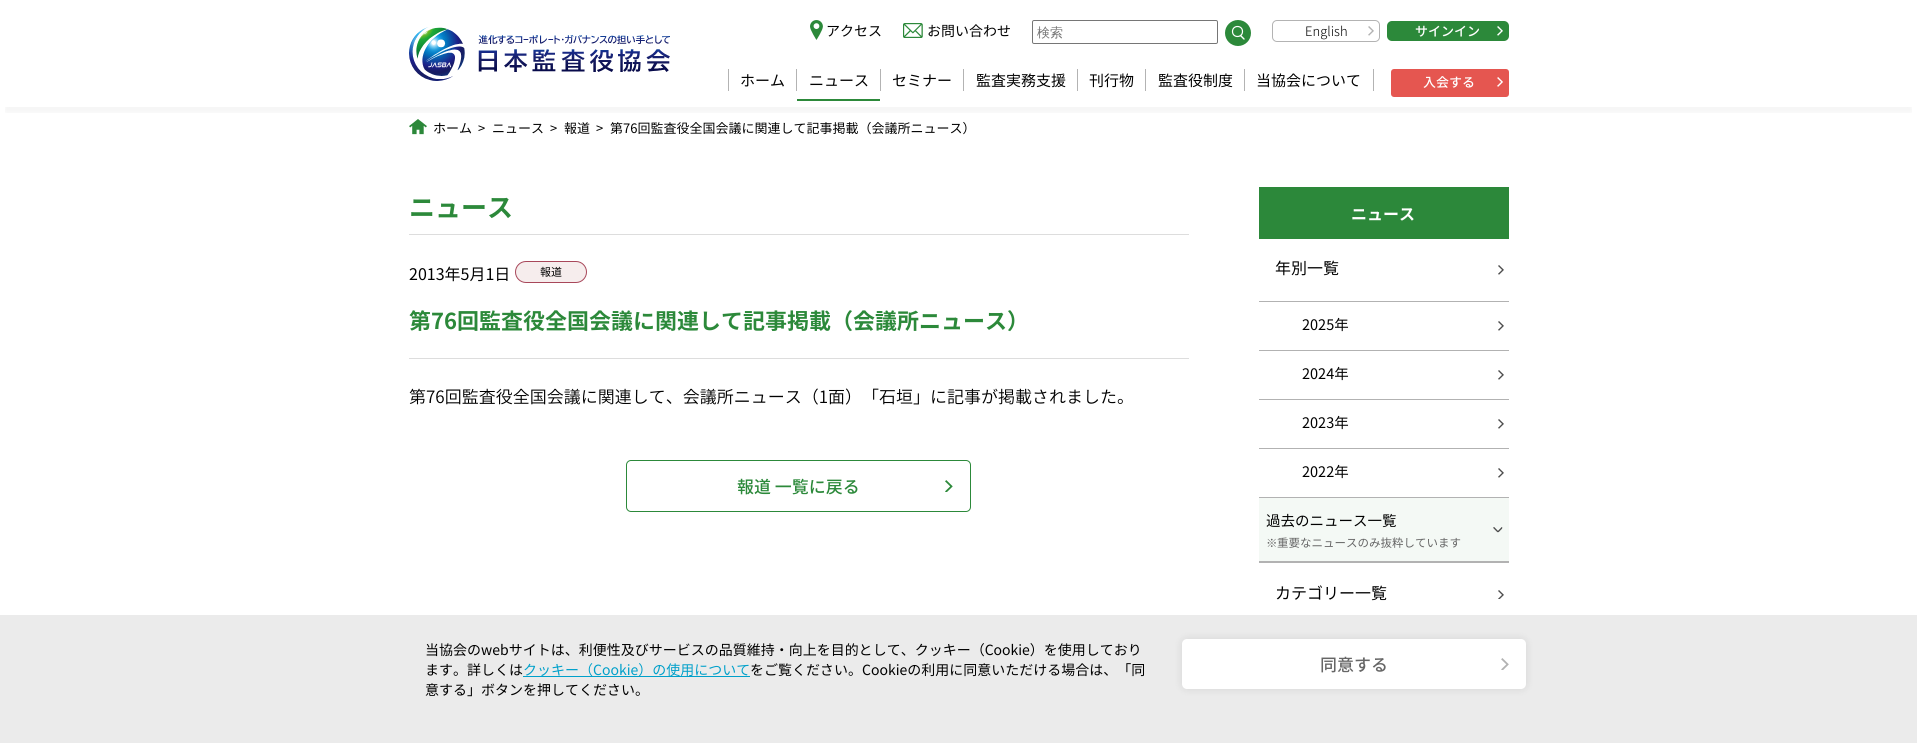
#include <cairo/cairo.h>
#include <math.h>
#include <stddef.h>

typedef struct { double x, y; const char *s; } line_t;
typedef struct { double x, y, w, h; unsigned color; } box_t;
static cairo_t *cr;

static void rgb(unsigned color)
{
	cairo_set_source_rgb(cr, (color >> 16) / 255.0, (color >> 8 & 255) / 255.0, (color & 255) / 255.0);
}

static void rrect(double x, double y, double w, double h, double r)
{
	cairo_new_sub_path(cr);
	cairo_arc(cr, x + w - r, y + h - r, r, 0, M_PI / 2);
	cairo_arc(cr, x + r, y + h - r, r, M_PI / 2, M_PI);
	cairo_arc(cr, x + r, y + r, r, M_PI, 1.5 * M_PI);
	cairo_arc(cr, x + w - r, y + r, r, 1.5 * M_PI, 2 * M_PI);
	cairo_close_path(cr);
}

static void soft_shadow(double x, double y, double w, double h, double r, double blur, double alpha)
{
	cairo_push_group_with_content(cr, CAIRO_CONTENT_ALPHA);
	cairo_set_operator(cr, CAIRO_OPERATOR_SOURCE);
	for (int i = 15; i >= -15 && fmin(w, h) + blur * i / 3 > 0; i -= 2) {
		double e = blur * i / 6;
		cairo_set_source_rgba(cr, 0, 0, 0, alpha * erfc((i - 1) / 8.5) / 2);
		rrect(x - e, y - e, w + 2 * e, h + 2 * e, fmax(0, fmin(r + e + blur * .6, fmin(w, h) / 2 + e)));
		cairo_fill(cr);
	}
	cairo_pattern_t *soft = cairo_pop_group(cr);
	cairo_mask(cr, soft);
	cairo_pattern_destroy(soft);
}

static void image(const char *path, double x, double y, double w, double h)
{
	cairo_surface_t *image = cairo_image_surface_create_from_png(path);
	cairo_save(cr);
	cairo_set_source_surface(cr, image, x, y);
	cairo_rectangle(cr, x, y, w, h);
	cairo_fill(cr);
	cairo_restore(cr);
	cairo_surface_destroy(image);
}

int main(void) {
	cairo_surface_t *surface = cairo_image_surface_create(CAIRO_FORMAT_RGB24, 1917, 743);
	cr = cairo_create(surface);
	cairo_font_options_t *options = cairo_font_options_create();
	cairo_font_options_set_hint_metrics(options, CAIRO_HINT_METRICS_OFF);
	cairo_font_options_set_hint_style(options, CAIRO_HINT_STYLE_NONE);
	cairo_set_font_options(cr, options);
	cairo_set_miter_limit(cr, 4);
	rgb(0xffffff);
	cairo_paint(cr);
	image("img/7.png", 409, 119, 18, 16);
	cairo_save(cr);
	cairo_rectangle(cr, 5, 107, 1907, 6);
	cairo_clip(cr);
	rgb(0x000000);
	soft_shadow(5, 15, 1907, 97, 0, 5, 0.05);
	cairo_restore(cr);
	image("img/1.png", 409, 27, 261, 54);
	image("img/2.png", 810, 20, 13, 20);
	image("img/3.png", 903, 23, 20, 15);
	rrect(1032.5, 20.5, 185, 23, 1.5);
	rgb(0x767676);
	cairo_set_line_width(cr, 1);
	cairo_stroke(cr);
	rgb(0x2c893a);
	cairo_arc(cr, 1238, 33, 13, 0, 2 * M_PI);
	cairo_fill(cr);
	cairo_arc(cr, 1237.5, 31.5, 5, 0, 2 * M_PI);
	rgb(0xffffff);
	cairo_set_line_width(cr, 1.2);
	cairo_stroke(cr);
	cairo_new_path(cr);
	cairo_move_to(cr, 1240.5, 35.5);
	cairo_line_to(cr, 1244, 39);
	cairo_set_line_width(cr, 1.4);
	cairo_set_line_cap(cr, CAIRO_LINE_CAP_ROUND);
	cairo_set_line_join(cr, CAIRO_LINE_JOIN_ROUND);
	cairo_stroke(cr);
	image("img/4.png", 1368, 26, 6, 10);
	rrect(1272.5, 20.5, 107, 21, 4.5);
	rgb(0xb3b3b3);
	cairo_set_line_width(cr, 1);
	cairo_set_line_cap(cr, CAIRO_LINE_CAP_BUTT);
	cairo_set_line_join(cr, CAIRO_LINE_JOIN_MITER);
	cairo_stroke(cr);
	rgb(0x2c893a);
	rrect(1387, 21, 122, 20, 5);
	cairo_fill(cr);
	image("img/5.png", 1497, 26, 6, 10);
	{
		static const box_t items[] = {
			{728, 69, 1, 22, 0xb3b3b3},
			{796, 69, 1, 22, 0xb3b3b3},
			{880, 69, 1, 22, 0xb3b3b3},
			{797, 99, 83, 2, 0x2c893a},
			{963, 69, 1, 22, 0xb3b3b3},
			{1077, 69, 1, 22, 0xb3b3b3},
			{1145, 69, 1, 22, 0xb3b3b3},
			{1244, 69, 1, 22, 0xb3b3b3},
			{1373, 69, 1, 22, 0xb3b3b3},
		};
		for (size_t i = 0; i < sizeof items / sizeof *items; i++) {
			rgb(items[i].color);
			cairo_rectangle(cr, items[i].x, items[i].y, items[i].w, items[i].h);
			cairo_fill(cr);
		}
	}
	rgb(0xe55650);
	rrect(1391, 69, 118, 28, 3);
	cairo_fill(cr);
	image("img/6.png", 1497, 77, 6, 10);
	rgb(0xdddddd);
	cairo_rectangle(cr, 409, 234, 780, 1);
	cairo_fill(cr);
	rgb(0xf6eded);
	rrect(515.5, 261.5, 71, 21, 10.5);
	cairo_fill_preserve(cr);
	rgb(0xa8475a);
	cairo_stroke(cr);
	rgb(0xdddddd);
	cairo_rectangle(cr, 409, 358, 780, 1);
	cairo_fill(cr);
	image("img/8.png", 945, 480, 8, 12);
	rrect(626.5, 460.5, 344, 51, 4.5);
	rgb(0x2c893a);
	cairo_stroke(cr);
	rgb(0x2c883a);
	cairo_rectangle(cr, 1259, 187, 250, 52);
	cairo_fill(cr);
	rgb(0xb2b2b2);
	cairo_rectangle(cr, 1259, 561, 250, 2);
	cairo_fill(cr);
	image("img/9.png", 1498, 265, 6, 10);
	cairo_rectangle(cr, 1259, 301, 250, 1);
	cairo_fill(cr);
	cairo_rectangle(cr, 1259, 350, 250, 1);
	cairo_fill(cr);
	image("img/9.png", 1498, 321, 6, 10);
	cairo_rectangle(cr, 1259, 399, 250, 1);
	cairo_fill(cr);
	image("img/9.png", 1498, 370, 6, 10);
	cairo_rectangle(cr, 1259, 448, 250, 1);
	cairo_fill(cr);
	image("img/9.png", 1498, 419, 6, 10);
	cairo_rectangle(cr, 1259, 497, 250, 1);
	cairo_fill(cr);
	image("img/9.png", 1498, 468, 6, 10);
	rgb(0xf4f9f5);
	cairo_rectangle(cr, 1259, 498, 250, 63);
	cairo_fill(cr);
	image("img/10.png", 1493, 527, 10, 6);
	image("img/11.png", 1498, 590, 6, 9);
	rgb(0xebebeb);
	cairo_rectangle(cr, 0, 615, 1917, 128);
	cairo_fill(cr);
	rgb(0x00a0ca);
	cairo_rectangle(cr, 523, 676, 227, 1);
	cairo_fill(cr);
	rgb(0x000000);
	soft_shadow(1182, 639, 344, 50, 5, 4, 0.1);
	rgb(0xffffff);
	rrect(1182, 639, 344, 50, 5);
	cairo_fill(cr);
	image("img/12.png", 1501, 658, 8, 12);
	cairo_select_font_face(cr, "Noto Sans JP", CAIRO_FONT_SLANT_NORMAL, CAIRO_FONT_WEIGHT_NORMAL);
	cairo_set_font_size(cr, 14);
	rgb(0x000000);
	cairo_move_to(cr, 826, 36);
	cairo_show_text(cr, "アクセス");
	cairo_move_to(cr, 927, 36);
	cairo_show_text(cr, "お問い合わせ");
	cairo_select_font_face(cr, "WenQuanYi Zen Hei Medium", CAIRO_FONT_SLANT_NORMAL, CAIRO_FONT_WEIGHT_NORMAL);
	cairo_set_font_size(cr, 13);
	rgb(0x757575);
	cairo_move_to(cr, 1037, 37);
	cairo_show_text(cr, "検索");
	cairo_select_font_face(cr, "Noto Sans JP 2 Light", CAIRO_FONT_SLANT_NORMAL, CAIRO_FONT_WEIGHT_NORMAL);
	rgb(0x000000);
	cairo_move_to(cr, 1305, 36);
	cairo_show_text(cr, "English");
	cairo_select_font_face(cr, "Noto Sans JP Medium", CAIRO_FONT_SLANT_NORMAL, CAIRO_FONT_WEIGHT_NORMAL);
	rgb(0xffffff);
	cairo_move_to(cr, 1415, 36);
	cairo_show_text(cr, "サインイン");
	cairo_select_font_face(cr, "Noto Sans JP", CAIRO_FONT_SLANT_NORMAL, CAIRO_FONT_WEIGHT_NORMAL);
	cairo_set_font_size(cr, 15);
	rgb(0x000000);
	{
		static const line_t items[] = {
			{740, 86, "ホーム"},
			{809, 86, "ニュース"},
			{892, 86, "セミナー"},
			{976, 86, "監査実務支援"},
			{1089, 86, "刊行物"},
			{1158, 86, "監査役制度"},
			{1256, 86, "当協会について"},
		};
		for (size_t i = 0; i < sizeof items / sizeof *items; i++) {
			cairo_move_to(cr, items[i].x, items[i].y);
			cairo_show_text(cr, items[i].s);
		}
	}
	cairo_select_font_face(cr, "Noto Sans JP Medium", CAIRO_FONT_SLANT_NORMAL, CAIRO_FONT_WEIGHT_NORMAL);
	cairo_set_font_size(cr, 13);
	rgb(0xffffff);
	cairo_move_to(cr, 1423, 87);
	cairo_show_text(cr, "入会する");
	cairo_select_font_face(cr, "Noto Sans JP", CAIRO_FONT_SLANT_NORMAL, CAIRO_FONT_WEIGHT_NORMAL);
	rgb(0x000000);
	{
		static const line_t items[] = {
			{433, 133, "ホーム"},
			{478, 133, ">"},
			{492, 133, "ニュース"},
			{550, 133, ">"},
			{564, 133, "報道"},
			{596, 133, ">"},
			{610, 133, "第76回監査役全国会議に関連して記事掲載（会議所ニュース）"},
		};
		for (size_t i = 0; i < sizeof items / sizeof *items; i++) {
			cairo_move_to(cr, items[i].x, items[i].y);
			cairo_show_text(cr, items[i].s);
		}
	}
	cairo_select_font_face(cr, "Noto Sans JP", CAIRO_FONT_SLANT_NORMAL, CAIRO_FONT_WEIGHT_BOLD);
	cairo_set_font_size(cr, 26);
	rgb(0x2c893a);
	cairo_move_to(cr, 409, 217);
	cairo_show_text(cr, "ニュース");
	cairo_select_font_face(cr, "Noto Sans JP", CAIRO_FONT_SLANT_NORMAL, CAIRO_FONT_WEIGHT_NORMAL);
	cairo_set_font_size(cr, 16);
	rgb(0x000000);
	cairo_move_to(cr, 409, 280);
	cairo_show_text(cr, "2013年5月1日");
	cairo_set_font_size(cr, 11);
	cairo_move_to(cr, 540, 276);
	cairo_show_text(cr, "報道");
	cairo_select_font_face(cr, "Noto Sans JP", CAIRO_FONT_SLANT_NORMAL, CAIRO_FONT_WEIGHT_BOLD);
	cairo_set_font_size(cr, 22);
	rgb(0x2c893a);
	cairo_move_to(cr, 409, 329);
	cairo_show_text(cr, "第76回監査役全国会議に関連して記事掲載（会議所ニュース）");
	cairo_select_font_face(cr, "Noto Sans JP Light", CAIRO_FONT_SLANT_NORMAL, CAIRO_FONT_WEIGHT_NORMAL);
	cairo_set_font_size(cr, 17);
	rgb(0x000000);
	cairo_move_to(cr, 409, 403);
	cairo_show_text(cr, "第76回監査役全国会議に関連して、会議所ニュース（1面）「石垣」に記事が掲載されました。");
	cairo_select_font_face(cr, "Noto Sans JP Medium", CAIRO_FONT_SLANT_NORMAL, CAIRO_FONT_WEIGHT_NORMAL);
	rgb(0x2c893a);
	cairo_move_to(cr, 737, 493);
	cairo_show_text(cr, "報道 一覧に戻る");
	cairo_select_font_face(cr, "Noto Sans JP", CAIRO_FONT_SLANT_NORMAL, CAIRO_FONT_WEIGHT_BOLD);
	cairo_set_font_size(cr, 16);
	rgb(0xffffff);
	cairo_move_to(cr, 1351, 220);
	cairo_show_text(cr, "ニュース");
	cairo_select_font_face(cr, "Noto Sans JP", CAIRO_FONT_SLANT_NORMAL, CAIRO_FONT_WEIGHT_NORMAL);
	rgb(0x000000);
	cairo_move_to(cr, 1275, 274);
	cairo_show_text(cr, "年別一覧");
	cairo_set_font_size(cr, 14.5);
	{
		static const line_t items[] = {
			{1302, 330, "2025年"},
			{1302, 379, "2024年"},
			{1302, 428, "2023年"},
			{1302, 477, "2022年"},
			{1266, 526, "過去のニュース一覧"},
		};
		for (size_t i = 0; i < sizeof items / sizeof *items; i++) {
			cairo_move_to(cr, items[i].x, items[i].y);
			cairo_show_text(cr, items[i].s);
		}
	}
	cairo_select_font_face(cr, "WenQuanYi Zen Hei Medium", CAIRO_FONT_SLANT_NORMAL, CAIRO_FONT_WEIGHT_NORMAL);
	cairo_set_font_size(cr, 11.5);
	rgb(0x666666);
	cairo_move_to(cr, 1266, 547);
	cairo_show_text(cr, "※");
	cairo_select_font_face(cr, "Noto Sans JP", CAIRO_FONT_SLANT_NORMAL, CAIRO_FONT_WEIGHT_NORMAL);
	cairo_move_to(cr, 1277, 547);
	cairo_show_text(cr, "重要なニュースのみ抜粋しています");
	cairo_set_font_size(cr, 16);
	rgb(0x000000);
	cairo_move_to(cr, 1275, 599);
	cairo_show_text(cr, "カテゴリー一覧");
	cairo_set_font_size(cr, 14);
	cairo_move_to(cr, 425, 655);
	cairo_show_text(cr, "当協会のwebサイトは、利便性及びサービスの品質維持・向上を目的として、クッキー（Cookie）を使用しており");
	cairo_move_to(cr, 425, 675);
	cairo_show_text(cr, "ます。詳しくは");
	rgb(0x00a0ca);
	cairo_move_to(cr, 523, 675);
	cairo_show_text(cr, "クッキー（Cookie）の使用について");
	rgb(0x000000);
	cairo_move_to(cr, 750, 675);
	cairo_show_text(cr, "をご覧ください。Cookieの利用に同意いただける場合は、「同");
	cairo_move_to(cr, 425, 695);
	cairo_show_text(cr, "意する」ボタンを押してください。");
	cairo_select_font_face(cr, "Noto Sans JP Medium", CAIRO_FONT_SLANT_NORMAL, CAIRO_FONT_WEIGHT_NORMAL);
	cairo_set_font_size(cr, 17);
	rgb(0x666666);
	cairo_move_to(cr, 1320, 671);
	cairo_show_text(cr, "同意する");
	cairo_surface_write_to_png(surface, "page.png");
	cairo_font_options_destroy(options);
	cairo_destroy(cr);
	cairo_surface_destroy(surface);
	return 0;
}
